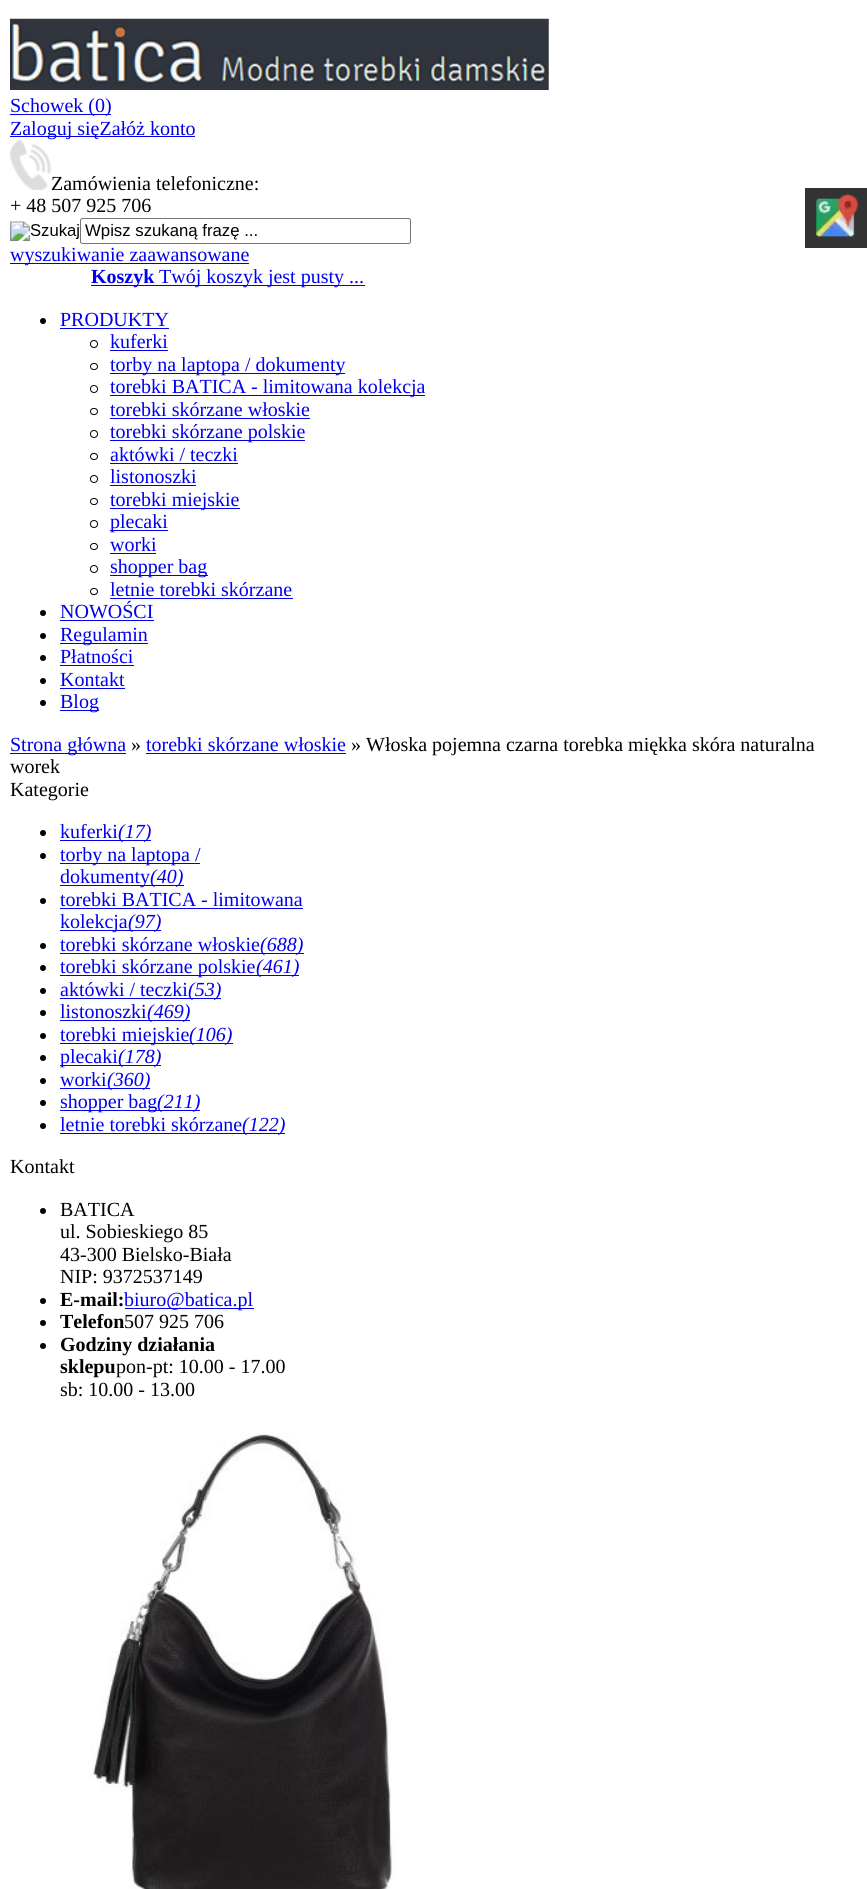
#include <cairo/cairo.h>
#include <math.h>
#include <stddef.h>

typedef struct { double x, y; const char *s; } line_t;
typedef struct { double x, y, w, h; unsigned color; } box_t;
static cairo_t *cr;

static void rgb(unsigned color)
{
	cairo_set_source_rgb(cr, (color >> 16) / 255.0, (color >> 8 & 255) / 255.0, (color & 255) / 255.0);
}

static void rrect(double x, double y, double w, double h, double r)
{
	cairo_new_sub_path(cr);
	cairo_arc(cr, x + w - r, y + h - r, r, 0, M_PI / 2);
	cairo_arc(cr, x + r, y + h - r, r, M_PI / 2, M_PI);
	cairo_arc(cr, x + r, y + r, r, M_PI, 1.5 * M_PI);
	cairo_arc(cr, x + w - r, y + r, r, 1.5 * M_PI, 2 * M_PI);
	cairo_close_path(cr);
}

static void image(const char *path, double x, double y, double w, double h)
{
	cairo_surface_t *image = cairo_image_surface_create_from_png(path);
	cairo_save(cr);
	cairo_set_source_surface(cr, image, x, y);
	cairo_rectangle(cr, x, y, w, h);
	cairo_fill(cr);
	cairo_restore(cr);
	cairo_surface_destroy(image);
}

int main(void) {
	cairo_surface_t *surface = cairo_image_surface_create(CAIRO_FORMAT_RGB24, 867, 1889);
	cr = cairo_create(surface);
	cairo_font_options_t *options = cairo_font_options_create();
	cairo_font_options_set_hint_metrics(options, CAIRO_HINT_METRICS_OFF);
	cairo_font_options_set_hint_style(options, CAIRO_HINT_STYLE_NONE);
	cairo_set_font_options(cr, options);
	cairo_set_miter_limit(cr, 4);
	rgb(0xffffff);
	cairo_paint(cr);
	image("img/1.png", 10, 18, 539, 72);
	rgb(0x0000ee);
	cairo_rectangle(cr, 10, 114, 101, 1);
	cairo_fill(cr);
	cairo_rectangle(cr, 10, 136, 185, 1);
	cairo_fill(cr);
	image("img/2.png", 10, 140, 42, 50);
	rgb(0x333333);
	cairo_rectangle(cr, 805, 188, 62, 60);
	cairo_fill(cr);
	image("img/3.png", 815, 193, 44, 45);
	image("img/4.png", 10, 221, 69, 21);
	rrect(80.5, 218.5, 330, 25, 2);
	rgb(0x767676);
	cairo_set_line_width(cr, 1);
	cairo_stroke(cr);
	rgb(0x0000ee);
	cairo_rectangle(cr, 10, 263, 239, 1);
	cairo_fill(cr);
	cairo_rectangle(cr, 91, 285, 274, 1);
	cairo_fill(cr);
	rgb(0x000000);
	cairo_arc(cr, 43, 321, 3, 0, 2 * M_PI);
	cairo_fill(cr);
	rgb(0x0000ee);
	cairo_rectangle(cr, 60, 328, 109, 1);
	cairo_fill(cr);
	cairo_arc(cr, 94, 344, 3.5, 0, 2 * M_PI);
	rgb(0x000000);
	cairo_stroke(cr);
	rgb(0x0000ee);
	cairo_rectangle(cr, 110, 350, 58, 1);
	cairo_fill(cr);
	rrect(90.5, 363.5, 7, 6, 3);
	rgb(0x000000);
	cairo_stroke(cr);
	rgb(0x0000ee);
	cairo_rectangle(cr, 110, 373, 235, 1);
	cairo_fill(cr);
	cairo_arc(cr, 94, 389, 3.5, 0, 2 * M_PI);
	rgb(0x000000);
	cairo_stroke(cr);
	rgb(0x0000ee);
	cairo_rectangle(cr, 110, 395, 315, 1);
	cairo_fill(cr);
	rrect(90.5, 408.5, 7, 6, 3);
	rgb(0x000000);
	cairo_stroke(cr);
	rgb(0x0000ee);
	cairo_rectangle(cr, 110, 418, 200, 1);
	cairo_fill(cr);
	cairo_arc(cr, 94, 434, 3.5, 0, 2 * M_PI);
	rgb(0x000000);
	cairo_stroke(cr);
	rgb(0x0000ee);
	cairo_rectangle(cr, 110, 440, 195, 1);
	cairo_fill(cr);
	rrect(90.5, 453.5, 7, 6, 3);
	rgb(0x000000);
	cairo_stroke(cr);
	rgb(0x0000ee);
	cairo_rectangle(cr, 110, 463, 128, 1);
	cairo_fill(cr);
	cairo_arc(cr, 94, 479, 3.5, 0, 2 * M_PI);
	rgb(0x000000);
	cairo_stroke(cr);
	rgb(0x0000ee);
	cairo_rectangle(cr, 110, 485, 86, 1);
	cairo_fill(cr);
	rrect(90.5, 498.5, 7, 6, 3);
	rgb(0x000000);
	cairo_stroke(cr);
	rgb(0x0000ee);
	cairo_rectangle(cr, 110, 508, 130, 1);
	cairo_fill(cr);
	cairo_arc(cr, 94, 524, 3.5, 0, 2 * M_PI);
	rgb(0x000000);
	cairo_stroke(cr);
	rgb(0x0000ee);
	cairo_rectangle(cr, 110, 530, 58, 1);
	cairo_fill(cr);
	rrect(90.5, 543.5, 7, 6, 3);
	rgb(0x000000);
	cairo_stroke(cr);
	rgb(0x0000ee);
	cairo_rectangle(cr, 110, 553, 46, 1);
	cairo_fill(cr);
	cairo_arc(cr, 94, 569, 3.5, 0, 2 * M_PI);
	rgb(0x000000);
	cairo_stroke(cr);
	rgb(0x0000ee);
	cairo_rectangle(cr, 110, 575, 98, 1);
	cairo_fill(cr);
	rrect(90.5, 588.5, 7, 6, 3);
	rgb(0x000000);
	cairo_stroke(cr);
	rgb(0x0000ee);
	cairo_rectangle(cr, 110, 598, 183, 1);
	cairo_fill(cr);
	rgb(0x000000);
	cairo_arc(cr, 43, 613, 3, 0, 2 * M_PI);
	cairo_fill(cr);
	rgb(0x0000ee);
	cairo_rectangle(cr, 60, 620, 94, 1);
	cairo_fill(cr);
	rgb(0x000000);
	cairo_arc(cr, 43, 636, 3, 0, 2 * M_PI);
	cairo_fill(cr);
	rgb(0x0000ee);
	cairo_rectangle(cr, 60, 643, 88, 1);
	cairo_fill(cr);
	rgb(0x000000);
	cairo_arc(cr, 43, 658, 3, 0, 2 * M_PI);
	cairo_fill(cr);
	rgb(0x0000ee);
	cairo_rectangle(cr, 60, 665, 74, 1);
	cairo_fill(cr);
	rgb(0x000000);
	cairo_arc(cr, 43, 681, 3, 0, 2 * M_PI);
	cairo_fill(cr);
	rgb(0x0000ee);
	cairo_rectangle(cr, 60, 688, 65, 1);
	cairo_fill(cr);
	rgb(0x000000);
	cairo_arc(cr, 43, 703, 3, 0, 2 * M_PI);
	cairo_fill(cr);
	{
		static const box_t items[] = {
			{60, 710, 39, 1, 0x0000ee},
			{10, 753, 116, 1, 0x0000ee},
			{146, 753, 200, 1, 0x0000ee},
		};
		for (size_t i = 0; i < sizeof items / sizeof *items; i++) {
			rgb(items[i].color);
			cairo_rectangle(cr, items[i].x, items[i].y, items[i].w, items[i].h);
			cairo_fill(cr);
		}
	}
	rgb(0x000000);
	cairo_arc(cr, 43, 833, 3, 0, 2 * M_PI);
	cairo_fill(cr);
	rgb(0x0000ee);
	cairo_rectangle(cr, 60, 840, 91, 1);
	cairo_fill(cr);
	rgb(0x000000);
	cairo_arc(cr, 43, 856, 3, 0, 2 * M_PI);
	cairo_fill(cr);
	rgb(0x0000ee);
	cairo_rectangle(cr, 60, 863, 140, 1);
	cairo_fill(cr);
	cairo_rectangle(cr, 60, 885, 124, 1);
	cairo_fill(cr);
	rgb(0x000000);
	cairo_arc(cr, 43, 901, 3, 0, 2 * M_PI);
	cairo_fill(cr);
	rgb(0x0000ee);
	cairo_rectangle(cr, 60, 908, 243, 1);
	cairo_fill(cr);
	cairo_rectangle(cr, 60, 930, 101, 1);
	cairo_fill(cr);
	rgb(0x000000);
	cairo_arc(cr, 43, 946, 3, 0, 2 * M_PI);
	cairo_fill(cr);
	rgb(0x0000ee);
	cairo_rectangle(cr, 60, 953, 244, 1);
	cairo_fill(cr);
	rgb(0x000000);
	cairo_arc(cr, 43, 968, 3, 0, 2 * M_PI);
	cairo_fill(cr);
	rgb(0x0000ee);
	cairo_rectangle(cr, 60, 975, 239, 1);
	cairo_fill(cr);
	rgb(0x000000);
	cairo_arc(cr, 43, 991, 3, 0, 2 * M_PI);
	cairo_fill(cr);
	rgb(0x0000ee);
	cairo_rectangle(cr, 60, 998, 161, 1);
	cairo_fill(cr);
	rgb(0x000000);
	cairo_arc(cr, 43, 1013, 3, 0, 2 * M_PI);
	cairo_fill(cr);
	rgb(0x0000ee);
	cairo_rectangle(cr, 60, 1020, 130, 1);
	cairo_fill(cr);
	rgb(0x000000);
	cairo_arc(cr, 43, 1036, 3, 0, 2 * M_PI);
	cairo_fill(cr);
	rgb(0x0000ee);
	cairo_rectangle(cr, 60, 1043, 173, 1);
	cairo_fill(cr);
	rgb(0x000000);
	cairo_arc(cr, 43, 1058, 3, 0, 2 * M_PI);
	cairo_fill(cr);
	rgb(0x0000ee);
	cairo_rectangle(cr, 60, 1065, 101, 1);
	cairo_fill(cr);
	rgb(0x000000);
	cairo_arc(cr, 43, 1081, 3, 0, 2 * M_PI);
	cairo_fill(cr);
	rgb(0x0000ee);
	cairo_rectangle(cr, 60, 1088, 90, 1);
	cairo_fill(cr);
	rgb(0x000000);
	cairo_arc(cr, 43, 1103, 3, 0, 2 * M_PI);
	cairo_fill(cr);
	rgb(0x0000ee);
	cairo_rectangle(cr, 60, 1110, 140, 1);
	cairo_fill(cr);
	rgb(0x000000);
	cairo_arc(cr, 43, 1126, 3, 0, 2 * M_PI);
	cairo_fill(cr);
	rgb(0x0000ee);
	cairo_rectangle(cr, 60, 1133, 225, 1);
	cairo_fill(cr);
	rgb(0x000000);
	cairo_arc(cr, 43, 1211, 3, 0, 2 * M_PI);
	cairo_fill(cr);
	cairo_arc(cr, 43, 1301, 3, 0, 2 * M_PI);
	cairo_fill(cr);
	rgb(0x0000ee);
	cairo_rectangle(cr, 125, 1308, 129, 1);
	cairo_fill(cr);
	rgb(0x000000);
	cairo_arc(cr, 43, 1323, 3, 0, 2 * M_PI);
	cairo_fill(cr);
	cairo_arc(cr, 43, 1346, 3, 0, 2 * M_PI);
	cairo_fill(cr);
	image("img/5.png", 90, 1433, 306, 456);
	cairo_select_font_face(cr, "Liberation Serif", CAIRO_FONT_SLANT_NORMAL, CAIRO_FONT_WEIGHT_NORMAL);
	cairo_set_font_size(cr, 20);
	rgb(0x0000ee);
	cairo_move_to(cr, 10, 112);
	cairo_show_text(cr, "Schowek (0)");
	cairo_move_to(cr, 10, 135);
	cairo_show_text(cr, "Zaloguj sięZałóż konto");
	rgb(0x000000);
	cairo_move_to(cr, 51, 190);
	cairo_show_text(cr, "Zamówienia telefoniczne:");
	cairo_move_to(cr, 10, 212);
	cairo_show_text(cr, "+ 48 507 925 706");
	cairo_select_font_face(cr, "Liberation Sans", CAIRO_FONT_SLANT_NORMAL, CAIRO_FONT_WEIGHT_NORMAL);
	cairo_set_font_size(cr, 16.75);
	cairo_move_to(cr, 85, 236);
	cairo_show_text(cr, "Wpisz szukaną frazę ...");
	cairo_select_font_face(cr, "Liberation Serif", CAIRO_FONT_SLANT_NORMAL, CAIRO_FONT_WEIGHT_NORMAL);
	cairo_set_font_size(cr, 20);
	rgb(0x0000ee);
	cairo_move_to(cr, 10, 261);
	cairo_show_text(cr, "wyszukiwanie zaawansowane");
	cairo_select_font_face(cr, "Liberation Serif", CAIRO_FONT_SLANT_NORMAL, CAIRO_FONT_WEIGHT_BOLD);
	cairo_move_to(cr, 91, 283);
	cairo_show_text(cr, "Koszyk");
	cairo_select_font_face(cr, "Liberation Serif", CAIRO_FONT_SLANT_NORMAL, CAIRO_FONT_WEIGHT_NORMAL);
	{
		static const line_t items[] = {
			{159, 283, "Twój koszyk jest pusty ..."},
			{60, 326, "PRODUKTY"},
			{110, 348, "kuferki"},
			{110, 371, "torby na laptopa / dokumenty"},
			{110, 393, "torebki BATICA - limitowana kolekcja"},
			{110, 416, "torebki skórzane włoskie"},
			{110, 438, "torebki skórzane polskie"},
			{110, 461, "aktówki / teczki"},
			{110, 483, "listonoszki"},
			{110, 506, "torebki miejskie"},
			{110, 528, "plecaki"},
			{110, 551, "worki"},
			{110, 573, "shopper bag"},
			{110, 596, "letnie torebki skórzane"},
			{60, 618, "NOWOŚCI"},
			{60, 641, "Regulamin"},
			{60, 663, "Płatności"},
			{60, 686, "Kontakt"},
			{60, 708, "Blog"},
			{10, 751, "Strona główna"},
		};
		for (size_t i = 0; i < sizeof items / sizeof *items; i++) {
			cairo_move_to(cr, items[i].x, items[i].y);
			cairo_show_text(cr, items[i].s);
		}
	}
	rgb(0x000000);
	cairo_move_to(cr, 131, 751);
	cairo_show_text(cr, "»");
	rgb(0x0000ee);
	cairo_move_to(cr, 146, 751);
	cairo_show_text(cr, "torebki skórzane włoskie");
	rgb(0x000000);
	{
		static const line_t items[] = {
			{351, 751, "» Włoska pojemna czarna torebka miękka skóra naturalna"},
			{10, 773, "worek"},
			{10, 796, "Kategorie"},
		};
		for (size_t i = 0; i < sizeof items / sizeof *items; i++) {
			cairo_move_to(cr, items[i].x, items[i].y);
			cairo_show_text(cr, items[i].s);
		}
	}
	rgb(0x0000ee);
	cairo_move_to(cr, 60, 838);
	cairo_show_text(cr, "kuferki");
	cairo_select_font_face(cr, "Liberation Serif", CAIRO_FONT_SLANT_ITALIC, CAIRO_FONT_WEIGHT_NORMAL);
	cairo_move_to(cr, 118, 838);
	cairo_show_text(cr, "(17)");
	cairo_select_font_face(cr, "Liberation Serif", CAIRO_FONT_SLANT_NORMAL, CAIRO_FONT_WEIGHT_NORMAL);
	cairo_move_to(cr, 60, 861);
	cairo_show_text(cr, "torby na laptopa /");
	cairo_move_to(cr, 60, 883);
	cairo_show_text(cr, "dokumenty");
	cairo_select_font_face(cr, "Liberation Serif", CAIRO_FONT_SLANT_ITALIC, CAIRO_FONT_WEIGHT_NORMAL);
	cairo_move_to(cr, 150, 883);
	cairo_show_text(cr, "(40)");
	cairo_select_font_face(cr, "Liberation Serif", CAIRO_FONT_SLANT_NORMAL, CAIRO_FONT_WEIGHT_NORMAL);
	cairo_move_to(cr, 60, 906);
	cairo_show_text(cr, "torebki BATICA - limitowana");
	cairo_move_to(cr, 60, 928);
	cairo_show_text(cr, "kolekcja");
	cairo_select_font_face(cr, "Liberation Serif", CAIRO_FONT_SLANT_ITALIC, CAIRO_FONT_WEIGHT_NORMAL);
	cairo_move_to(cr, 128, 928);
	cairo_show_text(cr, "(97)");
	cairo_select_font_face(cr, "Liberation Serif", CAIRO_FONT_SLANT_NORMAL, CAIRO_FONT_WEIGHT_NORMAL);
	cairo_move_to(cr, 60, 951);
	cairo_show_text(cr, "torebki skórzane włoskie");
	cairo_select_font_face(cr, "Liberation Serif", CAIRO_FONT_SLANT_ITALIC, CAIRO_FONT_WEIGHT_NORMAL);
	cairo_move_to(cr, 260, 951);
	cairo_show_text(cr, "(688)");
	cairo_select_font_face(cr, "Liberation Serif", CAIRO_FONT_SLANT_NORMAL, CAIRO_FONT_WEIGHT_NORMAL);
	cairo_move_to(cr, 60, 973);
	cairo_show_text(cr, "torebki skórzane polskie");
	cairo_select_font_face(cr, "Liberation Serif", CAIRO_FONT_SLANT_ITALIC, CAIRO_FONT_WEIGHT_NORMAL);
	cairo_move_to(cr, 256, 973);
	cairo_show_text(cr, "(461)");
	cairo_select_font_face(cr, "Liberation Serif", CAIRO_FONT_SLANT_NORMAL, CAIRO_FONT_WEIGHT_NORMAL);
	cairo_move_to(cr, 60, 996);
	cairo_show_text(cr, "aktówki / teczki");
	cairo_select_font_face(cr, "Liberation Serif", CAIRO_FONT_SLANT_ITALIC, CAIRO_FONT_WEIGHT_NORMAL);
	cairo_move_to(cr, 188, 996);
	cairo_show_text(cr, "(53)");
	cairo_select_font_face(cr, "Liberation Serif", CAIRO_FONT_SLANT_NORMAL, CAIRO_FONT_WEIGHT_NORMAL);
	cairo_move_to(cr, 60, 1018);
	cairo_show_text(cr, "listonoszki");
	cairo_select_font_face(cr, "Liberation Serif", CAIRO_FONT_SLANT_ITALIC, CAIRO_FONT_WEIGHT_NORMAL);
	cairo_move_to(cr, 147, 1018);
	cairo_show_text(cr, "(469)");
	cairo_select_font_face(cr, "Liberation Serif", CAIRO_FONT_SLANT_NORMAL, CAIRO_FONT_WEIGHT_NORMAL);
	cairo_move_to(cr, 60, 1041);
	cairo_show_text(cr, "torebki miejskie");
	cairo_select_font_face(cr, "Liberation Serif", CAIRO_FONT_SLANT_ITALIC, CAIRO_FONT_WEIGHT_NORMAL);
	cairo_move_to(cr, 189, 1041);
	cairo_show_text(cr, "(106)");
	cairo_select_font_face(cr, "Liberation Serif", CAIRO_FONT_SLANT_NORMAL, CAIRO_FONT_WEIGHT_NORMAL);
	cairo_move_to(cr, 60, 1063);
	cairo_show_text(cr, "plecaki");
	cairo_select_font_face(cr, "Liberation Serif", CAIRO_FONT_SLANT_ITALIC, CAIRO_FONT_WEIGHT_NORMAL);
	cairo_move_to(cr, 118, 1063);
	cairo_show_text(cr, "(178)");
	cairo_select_font_face(cr, "Liberation Serif", CAIRO_FONT_SLANT_NORMAL, CAIRO_FONT_WEIGHT_NORMAL);
	cairo_move_to(cr, 60, 1086);
	cairo_show_text(cr, "worki");
	cairo_select_font_face(cr, "Liberation Serif", CAIRO_FONT_SLANT_ITALIC, CAIRO_FONT_WEIGHT_NORMAL);
	cairo_move_to(cr, 107, 1086);
	cairo_show_text(cr, "(360)");
	cairo_select_font_face(cr, "Liberation Serif", CAIRO_FONT_SLANT_NORMAL, CAIRO_FONT_WEIGHT_NORMAL);
	cairo_move_to(cr, 60, 1108);
	cairo_show_text(cr, "shopper bag");
	cairo_select_font_face(cr, "Liberation Serif", CAIRO_FONT_SLANT_ITALIC, CAIRO_FONT_WEIGHT_NORMAL);
	cairo_move_to(cr, 157, 1108);
	cairo_show_text(cr, "(211)");
	cairo_select_font_face(cr, "Liberation Serif", CAIRO_FONT_SLANT_NORMAL, CAIRO_FONT_WEIGHT_NORMAL);
	cairo_move_to(cr, 60, 1131);
	cairo_show_text(cr, "letnie torebki skórzane");
	cairo_select_font_face(cr, "Liberation Serif", CAIRO_FONT_SLANT_ITALIC, CAIRO_FONT_WEIGHT_NORMAL);
	cairo_move_to(cr, 242, 1131);
	cairo_show_text(cr, "(122)");
	cairo_select_font_face(cr, "Liberation Serif", CAIRO_FONT_SLANT_NORMAL, CAIRO_FONT_WEIGHT_NORMAL);
	rgb(0x000000);
	{
		static const line_t items[] = {
			{10, 1173, "Kontakt"},
			{60, 1216, "BATICA"},
			{60, 1238, "ul. Sobieskiego 85"},
			{60, 1261, "43-300 Bielsko-Biała"},
			{60, 1283, "NIP: 9372537149"},
		};
		for (size_t i = 0; i < sizeof items / sizeof *items; i++) {
			cairo_move_to(cr, items[i].x, items[i].y);
			cairo_show_text(cr, items[i].s);
		}
	}
	cairo_select_font_face(cr, "Liberation Serif", CAIRO_FONT_SLANT_NORMAL, CAIRO_FONT_WEIGHT_BOLD);
	cairo_move_to(cr, 60, 1306);
	cairo_show_text(cr, "E-mail:");
	cairo_select_font_face(cr, "Liberation Serif", CAIRO_FONT_SLANT_NORMAL, CAIRO_FONT_WEIGHT_NORMAL);
	rgb(0x0000ee);
	cairo_move_to(cr, 124, 1306);
	cairo_show_text(cr, "biuro@batica.pl");
	cairo_select_font_face(cr, "Liberation Serif", CAIRO_FONT_SLANT_NORMAL, CAIRO_FONT_WEIGHT_BOLD);
	rgb(0x000000);
	cairo_move_to(cr, 60, 1328);
	cairo_show_text(cr, "Telefon");
	cairo_select_font_face(cr, "Liberation Serif", CAIRO_FONT_SLANT_NORMAL, CAIRO_FONT_WEIGHT_NORMAL);
	cairo_move_to(cr, 124, 1328);
	cairo_show_text(cr, "507 925 706");
	cairo_select_font_face(cr, "Liberation Serif", CAIRO_FONT_SLANT_NORMAL, CAIRO_FONT_WEIGHT_BOLD);
	cairo_move_to(cr, 60, 1351);
	cairo_show_text(cr, "Godziny działania");
	cairo_move_to(cr, 60, 1373);
	cairo_show_text(cr, "sklepu");
	cairo_select_font_face(cr, "Liberation Serif", CAIRO_FONT_SLANT_NORMAL, CAIRO_FONT_WEIGHT_NORMAL);
	cairo_move_to(cr, 116, 1373);
	cairo_show_text(cr, "pon-pt: 10.00 - 17.00");
	cairo_move_to(cr, 60, 1396);
	cairo_show_text(cr, "sb: 10.00 - 13.00");
	cairo_surface_write_to_png(surface, "page.png");
	cairo_font_options_destroy(options);
	cairo_destroy(cr);
	cairo_surface_destroy(surface);
	return 0;
}
